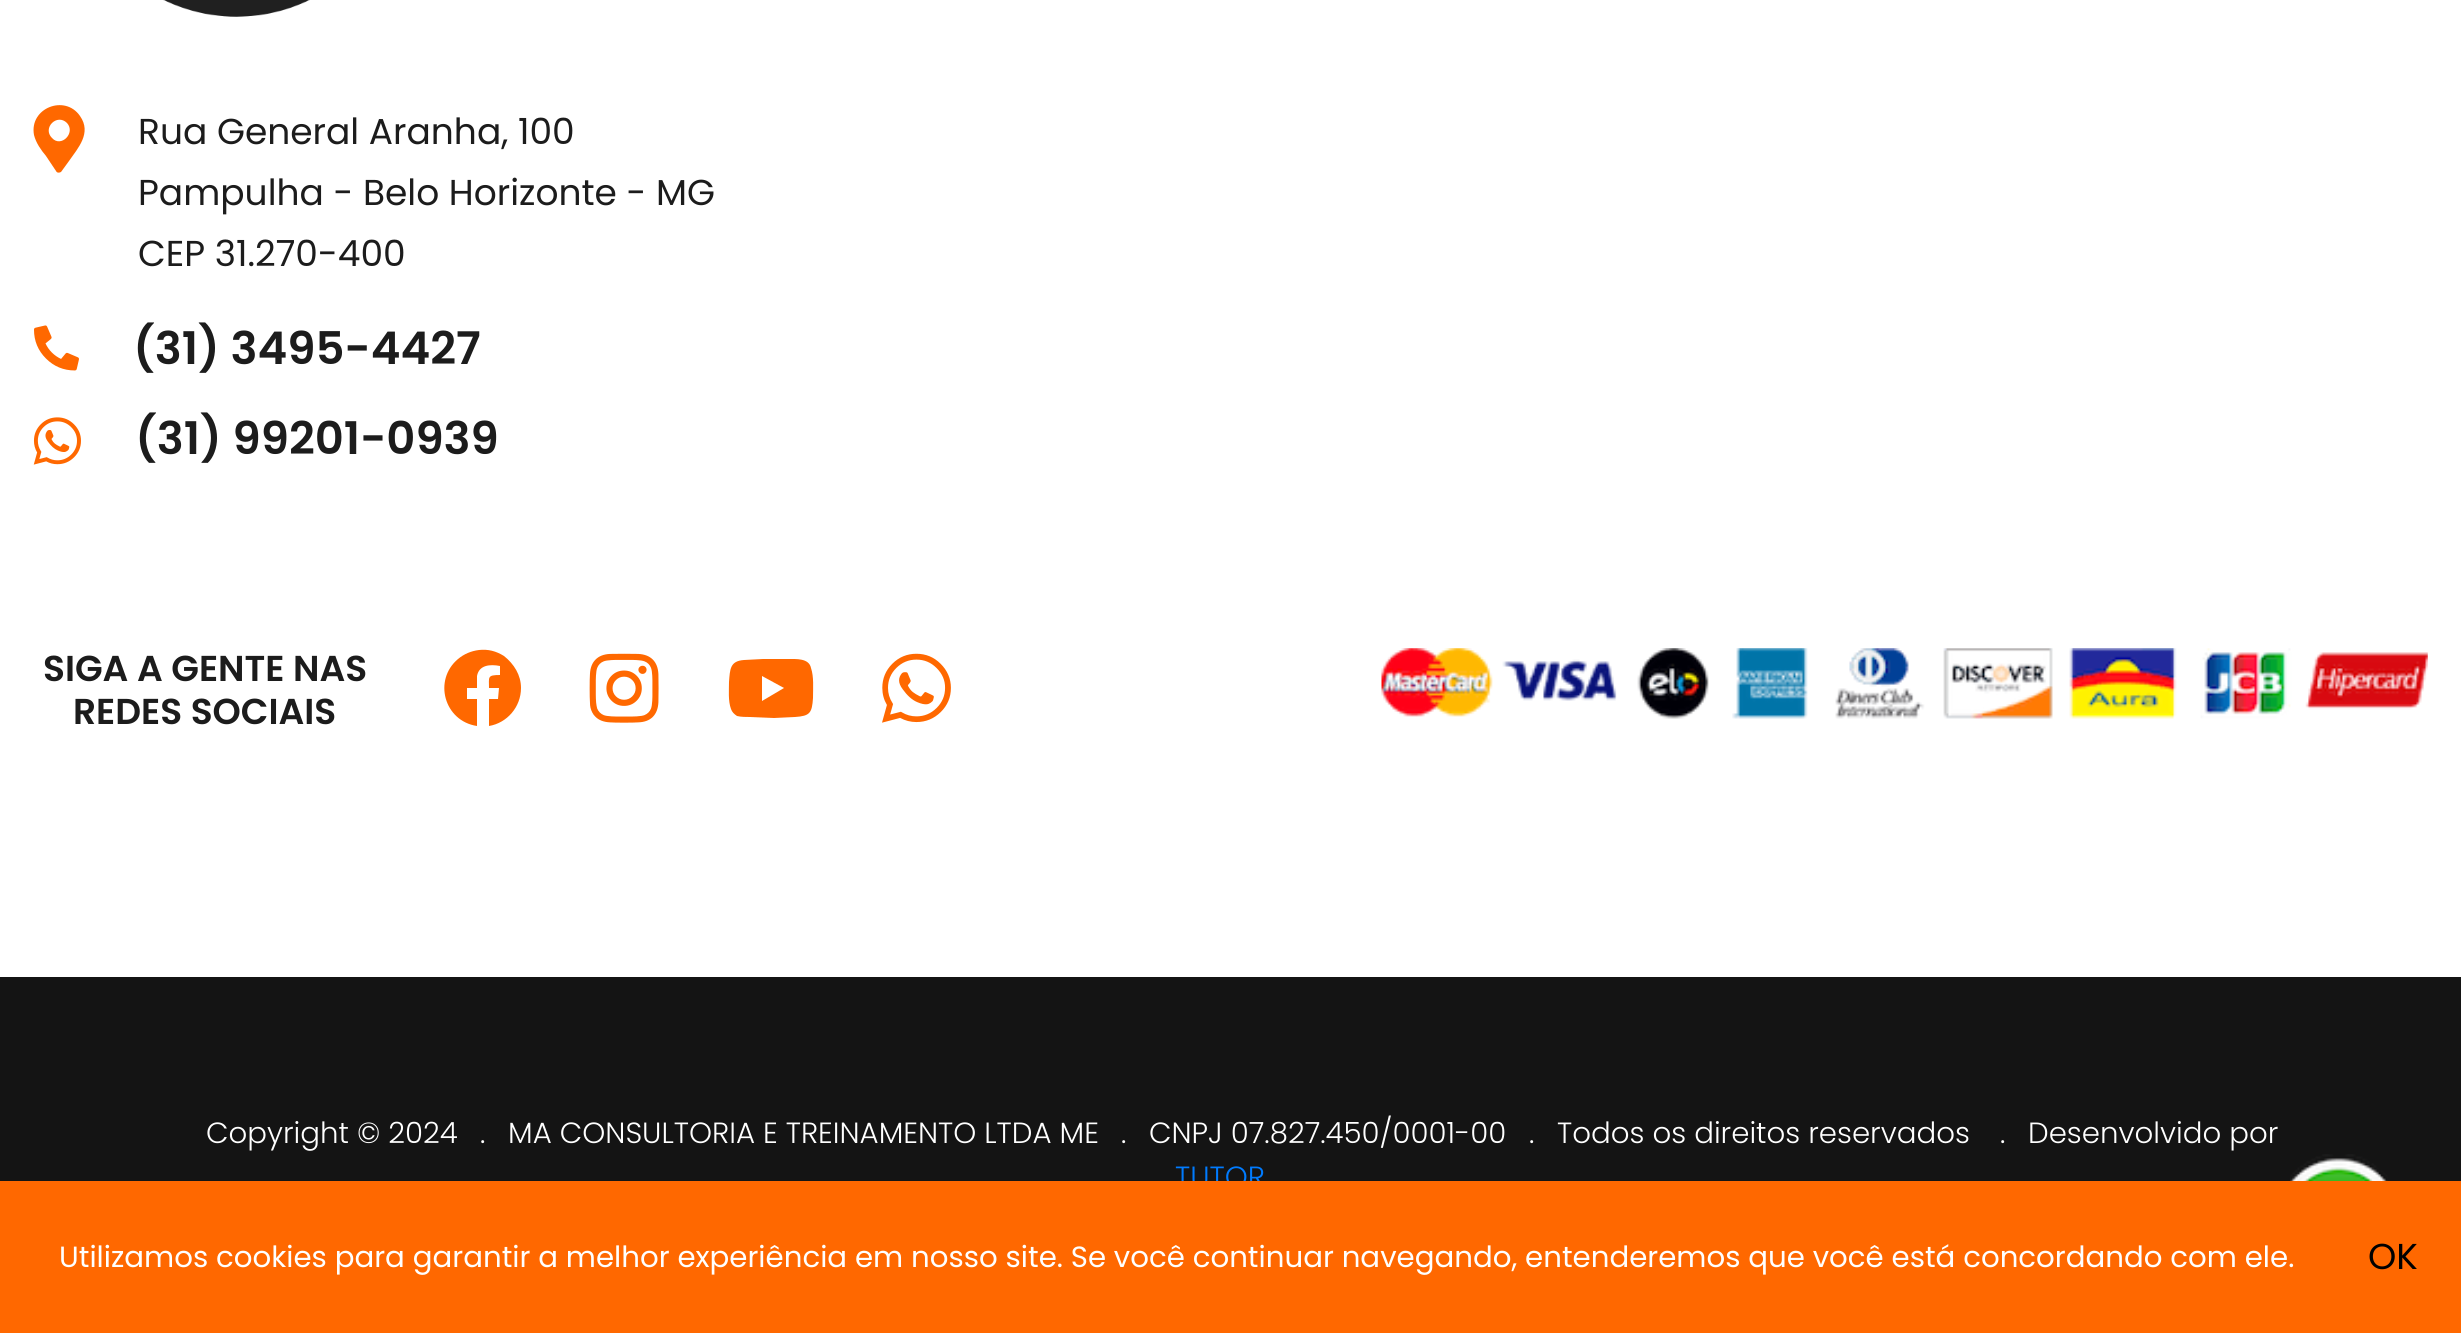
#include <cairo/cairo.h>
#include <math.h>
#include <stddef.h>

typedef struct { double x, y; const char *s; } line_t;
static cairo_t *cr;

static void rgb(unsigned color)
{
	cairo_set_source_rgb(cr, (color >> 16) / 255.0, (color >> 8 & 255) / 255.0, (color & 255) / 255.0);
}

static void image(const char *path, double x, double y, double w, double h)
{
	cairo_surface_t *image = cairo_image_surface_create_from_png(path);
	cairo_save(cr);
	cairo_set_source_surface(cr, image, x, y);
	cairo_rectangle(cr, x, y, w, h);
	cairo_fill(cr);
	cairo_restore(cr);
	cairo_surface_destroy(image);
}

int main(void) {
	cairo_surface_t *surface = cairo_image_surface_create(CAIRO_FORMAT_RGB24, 2461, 1333);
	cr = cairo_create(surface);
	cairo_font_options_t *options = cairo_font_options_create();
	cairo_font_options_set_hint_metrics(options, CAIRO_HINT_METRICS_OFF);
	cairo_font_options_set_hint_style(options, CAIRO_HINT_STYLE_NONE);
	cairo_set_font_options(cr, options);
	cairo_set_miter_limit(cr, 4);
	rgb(0xffffff);
	cairo_paint(cr);
	image("img/1.png", 163, 0, 147, 17);
	rgb(0xff6800);
	cairo_new_path(cr);
	cairo_move_to(cr, 56, 171);
	cairo_line_to(cr, 46, 156);
	cairo_curve_to(cr, 41, 150, 36, 143, 34, 135);
	cairo_curve_to(cr, 29, 108, 65, 94, 80, 116);
	cairo_curve_to(cr, 92, 133, 78, 148, 69, 161);
	cairo_line_to(cr, 61, 172);
	cairo_curve_to(cr, 59, 173, 57, 173, 56, 171);
	cairo_close_path(cr);
	cairo_move_to(cr, 52, 138);
	cairo_curve_to(cr, 61, 148, 76, 133, 67, 123);
	cairo_curve_to(cr, 57, 113, 42, 128, 52, 138);
	cairo_close_path(cr);
	cairo_fill(cr);
	image("img/2.png", 34, 325, 45, 46);
	image("img/3.png", 33, 417, 48, 48);
	cairo_new_path(cr);
	cairo_move_to(cr, 521, 688);
	cairo_curve_to(cr, 521, 707, 507, 723, 489, 726);
	cairo_line_to(cr, 489, 699);
	cairo_line_to(cr, 498, 699);
	cairo_line_to(cr, 499, 688);
	cairo_line_to(cr, 489, 688);
	cairo_curve_to(cr, 489, 677, 487, 675, 500, 675);
	cairo_line_to(cr, 500, 666);
	cairo_curve_to(cr, 490, 664, 479, 665, 477, 676);
	cairo_line_to(cr, 477, 688);
	cairo_line_to(cr, 467, 688);
	cairo_line_to(cr, 467, 699);
	cairo_line_to(cr, 477, 699);
	cairo_line_to(cr, 477, 726);
	cairo_curve_to(cr, 444, 721, 433, 680, 458, 659);
	cairo_curve_to(cr, 464, 654, 471, 651, 479, 650);
	cairo_curve_to(cr, 488, 649, 496, 651, 504, 656);
	cairo_curve_to(cr, 514, 664, 521, 675, 521, 688);
	cairo_close_path(cr);
	cairo_fill(cr);
	image("img/4.png", 589, 653, 70, 70);
	cairo_new_path(cr);
	cairo_move_to(cr, 811, 668);
	cairo_curve_to(cr, 814, 677, 813, 688, 813, 698);
	cairo_curve_to(cr, 812, 713, 810, 716, 795, 717);
	cairo_line_to(cr, 774, 718);
	cairo_line_to(cr, 750, 717);
	cairo_curve_to(cr, 746, 717, 741, 717, 737, 716);
	cairo_curve_to(cr, 734, 714, 732, 712, 731, 709);
	cairo_curve_to(cr, 728, 701, 729, 690, 729, 682);
	cairo_curve_to(cr, 730, 669, 730, 661, 744, 660);
	cairo_line_to(cr, 763, 659);
	cairo_line_to(cr, 788, 659);
	cairo_curve_to(cr, 796, 659, 809, 658, 811, 668);
	cairo_close_path(cr);
	cairo_move_to(cr, 762, 701);
	cairo_line_to(cr, 784, 688);
	cairo_line_to(cr, 762, 676);
	cairo_close_path(cr);
	cairo_fill(cr);
	image("img/5.png", 882, 653, 69, 70);
	image("img/6.png", 1381, 648, 1047, 71);
	rgb(0x141414);
	cairo_rectangle(cr, 0, 977, 2461, 204);
	cairo_fill(cr);
	image("img/7.png", 2290, 1154, 98, 27);
	cairo_select_font_face(cr, "Poppins", CAIRO_FONT_SLANT_NORMAL, CAIRO_FONT_WEIGHT_NORMAL);
	cairo_set_font_size(cr, 36);
	rgb(0x1c1c1c);
	{
		static const line_t items[] = {
			{138, 144, "Rua General Aranha, 100"},
			{138, 205, "Pampulha - Belo Horizonte - MG"},
			{138, 266, "CEP 31.270-400"},
		};
		for (size_t i = 0; i < sizeof items / sizeof *items; i++) {
			cairo_move_to(cr, items[i].x, items[i].y);
			cairo_show_text(cr, items[i].s);
		}
	}
	cairo_select_font_face(cr, "Poppins SemiBold", CAIRO_FONT_SLANT_NORMAL, CAIRO_FONT_WEIGHT_NORMAL);
	cairo_set_font_size(cr, 45);
	cairo_move_to(cr, 133, 364);
	cairo_show_text(cr, "(31) 3495-4427");
	cairo_move_to(cr, 135, 454);
	cairo_show_text(cr, "(31) 99201-0939");
	cairo_set_font_size(cr, 36);
	cairo_move_to(cr, 43, 681);
	cairo_show_text(cr, "SIGA A GENTE NAS");
	cairo_move_to(cr, 73, 724);
	cairo_show_text(cr, "REDES SOCIAIS");
	cairo_select_font_face(cr, "Poppins Light", CAIRO_FONT_SLANT_NORMAL, CAIRO_FONT_WEIGHT_NORMAL);
	cairo_set_font_size(cr, 29.25);
	rgb(0xffffff);
	{
		static const line_t items[] = {
			{206, 1143, "Copyright © 2024"},
			{480, 1143, "."},
			{508, 1143, "MA CONSULTORIA E TREINAMENTO LTDA ME"},
			{1121, 1143, "."},
			{1149, 1143, "CNPJ 07.827.450/0001-00"},
			{1529, 1143, "."},
			{1557, 1143, "Todos os direitos reservados"},
			{2000, 1143, "."},
			{2028, 1143, "Desenvolvido por"},
		};
		for (size_t i = 0; i < sizeof items / sizeof *items; i++) {
			cairo_move_to(cr, items[i].x, items[i].y);
			cairo_show_text(cr, items[i].s);
		}
	}
	rgb(0x007bff);
	cairo_move_to(cr, 1175, 1187);
	cairo_show_text(cr, "TUTOR");
	rgb(0xff6800);
	cairo_rectangle(cr, 0, 1181, 2461, 152);
	cairo_fill(cr);
	cairo_select_font_face(cr, "Poppins", CAIRO_FONT_SLANT_NORMAL, CAIRO_FONT_WEIGHT_NORMAL);
	rgb(0xffffff);
	cairo_move_to(cr, 59, 1267);
	cairo_show_text(cr, "Utilizamos cookies para garantir a melhor experiência em nosso site. Se você continuar navegando, entenderemos que você está concordando com ele.");
	cairo_set_font_size(cr, 36);
	rgb(0x000000);
	cairo_move_to(cr, 2368, 1269);
	cairo_show_text(cr, "OK");
	cairo_surface_write_to_png(surface, "page.png");
	cairo_font_options_destroy(options);
	cairo_destroy(cr);
	cairo_surface_destroy(surface);
	return 0;
}
